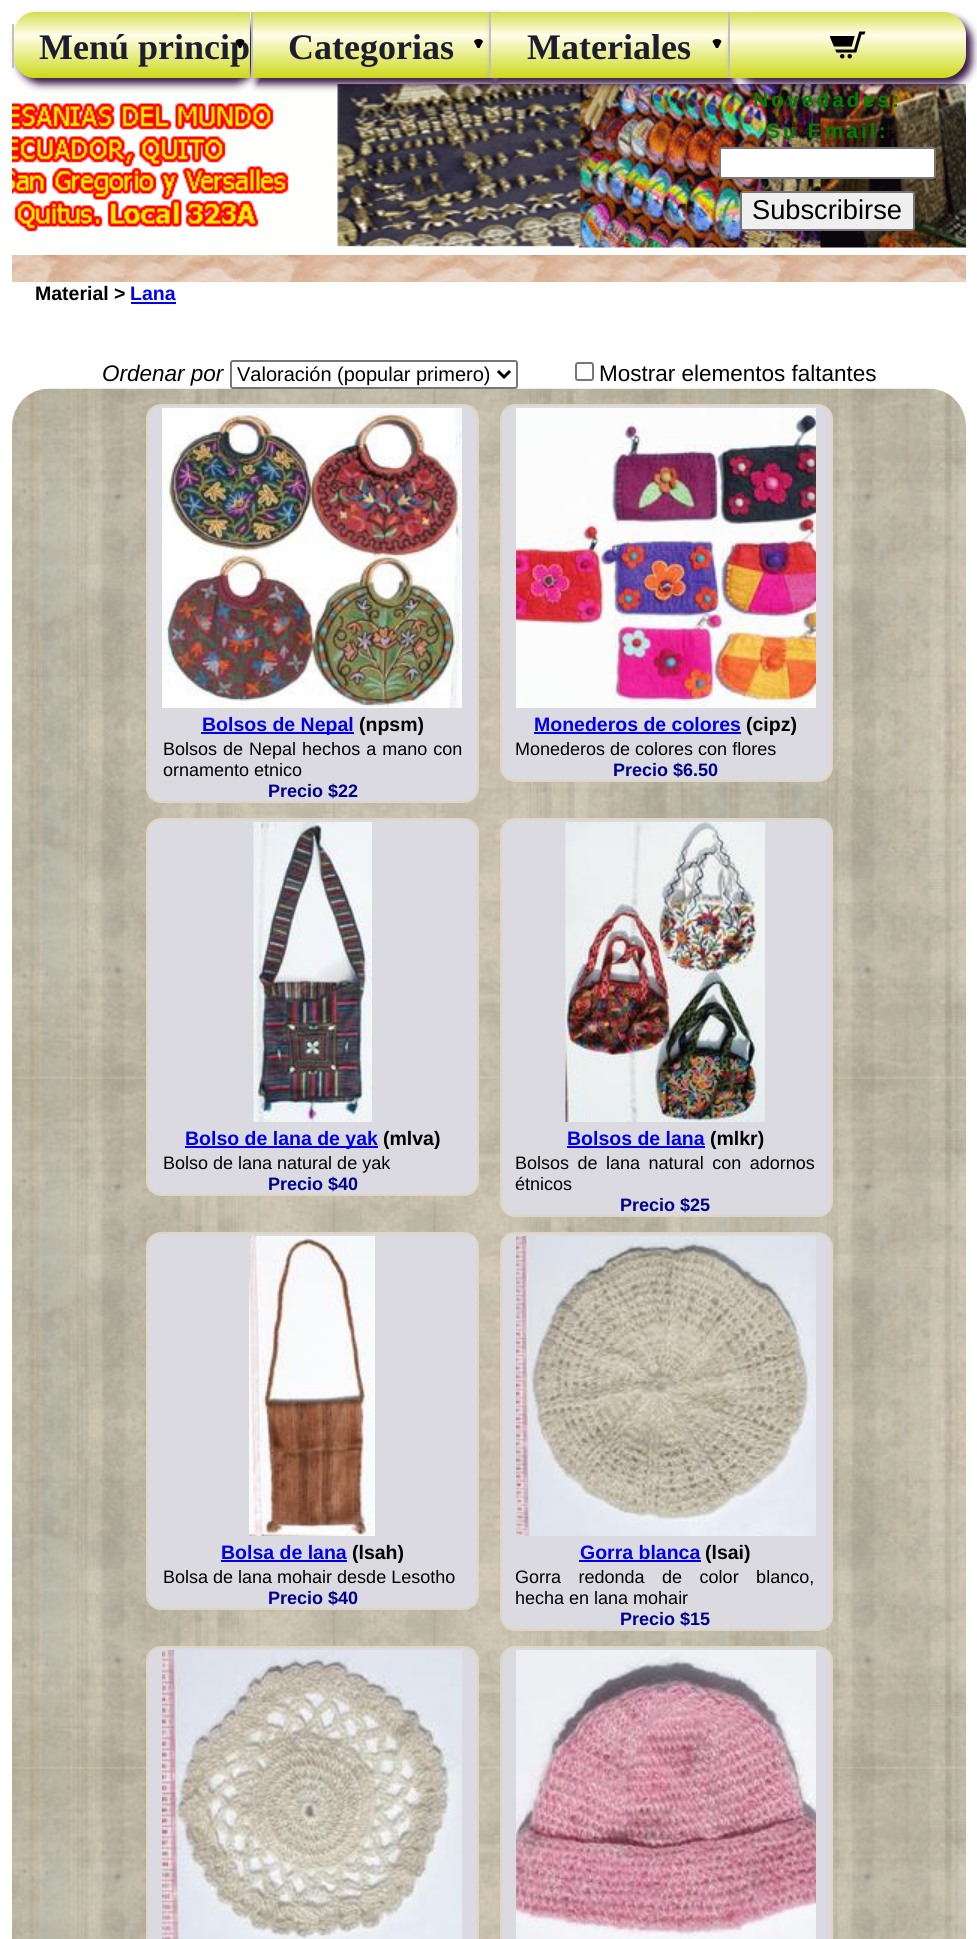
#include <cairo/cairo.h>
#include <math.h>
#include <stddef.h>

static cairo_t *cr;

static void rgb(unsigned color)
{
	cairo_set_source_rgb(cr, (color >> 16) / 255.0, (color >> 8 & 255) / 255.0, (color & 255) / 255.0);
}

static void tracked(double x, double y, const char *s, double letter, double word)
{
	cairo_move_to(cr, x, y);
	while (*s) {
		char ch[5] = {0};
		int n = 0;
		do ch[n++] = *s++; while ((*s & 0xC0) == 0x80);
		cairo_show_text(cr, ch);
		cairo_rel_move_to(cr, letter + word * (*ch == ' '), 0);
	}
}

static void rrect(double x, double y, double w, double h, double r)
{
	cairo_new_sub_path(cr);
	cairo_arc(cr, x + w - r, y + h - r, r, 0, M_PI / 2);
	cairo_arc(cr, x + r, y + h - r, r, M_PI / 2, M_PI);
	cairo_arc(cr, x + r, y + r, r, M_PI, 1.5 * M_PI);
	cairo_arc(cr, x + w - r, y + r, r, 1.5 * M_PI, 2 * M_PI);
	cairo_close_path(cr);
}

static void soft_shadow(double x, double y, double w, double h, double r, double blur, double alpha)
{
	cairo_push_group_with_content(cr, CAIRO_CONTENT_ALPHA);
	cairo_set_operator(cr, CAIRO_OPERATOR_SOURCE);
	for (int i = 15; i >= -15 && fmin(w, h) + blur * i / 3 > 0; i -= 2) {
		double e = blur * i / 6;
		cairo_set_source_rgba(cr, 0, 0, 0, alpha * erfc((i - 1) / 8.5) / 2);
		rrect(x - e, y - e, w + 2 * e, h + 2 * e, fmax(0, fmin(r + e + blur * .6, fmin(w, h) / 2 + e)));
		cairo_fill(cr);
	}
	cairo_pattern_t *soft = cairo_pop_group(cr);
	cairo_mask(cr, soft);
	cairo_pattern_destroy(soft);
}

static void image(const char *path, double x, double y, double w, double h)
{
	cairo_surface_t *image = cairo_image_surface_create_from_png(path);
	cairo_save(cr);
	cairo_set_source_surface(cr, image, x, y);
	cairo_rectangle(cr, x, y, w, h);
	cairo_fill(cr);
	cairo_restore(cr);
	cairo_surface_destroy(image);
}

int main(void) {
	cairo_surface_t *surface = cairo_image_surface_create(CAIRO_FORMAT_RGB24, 977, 1939);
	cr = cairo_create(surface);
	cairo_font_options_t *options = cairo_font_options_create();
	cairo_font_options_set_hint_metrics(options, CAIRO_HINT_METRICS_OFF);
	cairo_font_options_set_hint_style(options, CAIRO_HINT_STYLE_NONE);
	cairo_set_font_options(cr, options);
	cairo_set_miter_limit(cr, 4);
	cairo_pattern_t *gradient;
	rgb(0xffffff);
	cairo_paint(cr);
	image("img/2.png", 12, 84, 954, 164);
	rgb(0x341440);
	soft_shadow(18, 18, 239, 66, 23, 4, 1);
	gradient = cairo_pattern_create_linear(132, 12, 132, 78);
	cairo_pattern_add_color_stop_rgba(gradient, 0, 0.835, 0.871, 0.314, 1);
	cairo_pattern_add_color_stop_rgba(gradient, 0.35, 1, 0.996, 0.922, 1);
	cairo_pattern_add_color_stop_rgba(gradient, 1, 0.808, 0.851, 0.102, 1);
	cairo_set_source(cr, gradient);
	cairo_pattern_destroy(gradient);
	cairo_new_path(cr);
	cairo_move_to(cr, 34, 12);
	cairo_line_to(cr, 250, 12);
	cairo_line_to(cr, 250, 78);
	cairo_line_to(cr, 34, 78);
	cairo_curve_to(cr, 23, 78, 14, 68, 14, 56);
	cairo_line_to(cr, 14, 34);
	cairo_curve_to(cr, 14, 22, 23, 12, 34, 12);
	cairo_close_path(cr);
	cairo_fill(cr);
	rgb(0xc0c0c0);
	cairo_rectangle(cr, 12, 24, 2, 44);
	cairo_fill(cr);
	rgb(0xffffff);
	rrect(720, 148, 215, 30, 2);
	cairo_fill_preserve(cr);
	rgb(0x767676);
	cairo_stroke(cr);
	rgb(0xefefef);
	rrect(741, 192, 173, 38, 2);
	cairo_fill_preserve(cr);
	rgb(0x767676);
	cairo_stroke(cr);
	image("img/3.png", 12, 255, 954, 27);
	rgb(0x0000ee);
	cairo_rectangle(cr, 131, 302, 45, 2);
	cairo_fill(cr);
	image("img/4.png", 12, 388, 954, 1551);
	rgb(0xffffff);
	rrect(231, 361, 286, 27, 2);
	cairo_fill_preserve(cr);
	rgb(0x767676);
	cairo_stroke(cr);
	cairo_new_path(cr);
	cairo_move_to(cr, 498, 371);
	cairo_line_to(cr, 504, 377);
	cairo_line_to(cr, 510, 371);
	rgb(0x000000);
	cairo_set_line_width(cr, 3);
	cairo_stroke(cr);
	rrect(576, 363, 17, 17, 2);
	rgb(0x767676);
	cairo_set_line_width(cr, 2);
	cairo_stroke(cr);
	rgb(0xdadae0);
	rrect(147, 405, 331, 397, 14);
	cairo_fill_preserve(cr);
	rgb(0xded5c5);
	cairo_stroke(cr);
	image("img/5.png", 162, 408, 300, 300);
	rgb(0x0000ee);
	cairo_rectangle(cr, 201, 732, 153, 2);
	cairo_fill(cr);
	rgb(0xdadae0);
	rrect(501, 405, 331, 376, 14);
	cairo_fill_preserve(cr);
	rgb(0xded5c5);
	cairo_stroke(cr);
	image("img/6.png", 516, 408, 300, 300);
	rgb(0x0000ee);
	cairo_rectangle(cr, 534, 732, 207, 2);
	cairo_fill(cr);
	rgb(0xdadae0);
	rrect(147, 819, 331, 376, 14);
	cairo_fill_preserve(cr);
	rgb(0xded5c5);
	cairo_stroke(cr);
	image("img/7.png", 253, 822, 119, 300);
	rgb(0x0000ee);
	cairo_rectangle(cr, 185, 1146, 193, 2);
	cairo_fill(cr);
	rgb(0xdadae0);
	rrect(501, 819, 331, 397, 14);
	cairo_fill_preserve(cr);
	rgb(0xded5c5);
	cairo_stroke(cr);
	image("img/8.png", 565, 822, 200, 300);
	rgb(0x0000ee);
	cairo_rectangle(cr, 567, 1146, 138, 2);
	cairo_fill(cr);
	rgb(0xdadae0);
	rrect(147, 1233, 331, 376, 14);
	cairo_fill_preserve(cr);
	rgb(0xded5c5);
	cairo_stroke(cr);
	image("img/9.png", 249, 1236, 126, 300);
	rgb(0x0000ee);
	cairo_rectangle(cr, 221, 1560, 126, 2);
	cairo_fill(cr);
	rgb(0xdadae0);
	rrect(501, 1233, 331, 397, 14);
	cairo_fill_preserve(cr);
	rgb(0xded5c5);
	cairo_stroke(cr);
	image("img/10.png", 516, 1236, 300, 300);
	rgb(0x0000ee);
	cairo_rectangle(cr, 579, 1560, 122, 2);
	cairo_fill(cr);
	rgb(0xdadae0);
	rrect(147, 1647, 331, 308, 14);
	cairo_fill_preserve(cr);
	rgb(0xded5c5);
	cairo_stroke(cr);
	image("img/11.png", 162, 1650, 300, 289);
	rgb(0xdadae0);
	rrect(501, 1647, 331, 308, 14);
	cairo_fill_preserve(cr);
	rgb(0xded5c5);
	cairo_stroke(cr);
	image("img/12.png", 516, 1650, 300, 289);
	cairo_select_font_face(cr, "Liberation Serif", CAIRO_FONT_SLANT_NORMAL, CAIRO_FONT_WEIGHT_BOLD);
	cairo_set_font_size(cr, 36);
	rgb(0x1c1e30);
	cairo_move_to(cr, 39, 59);
	cairo_show_text(cr, "Menú princip");
	rgb(0x000000);
	cairo_new_path(cr);
	cairo_move_to(cr, 240, 39);
	cairo_curve_to(cr, 237.5, 39, 236, 40, 235.5, 41.5);
	cairo_line_to(cr, 239, 48);
	cairo_line_to(cr, 241, 48);
	cairo_line_to(cr, 244.5, 41.5);
	cairo_curve_to(cr, 244, 40, 242.5, 39, 240, 39);
	cairo_close_path(cr);
	cairo_fill(cr);
	rgb(0x341440);
	soft_shadow(257, 18, 238, 66, 0, 4, 1);
	gradient = cairo_pattern_create_linear(371, 12, 371, 78);
	cairo_pattern_add_color_stop_rgba(gradient, 0, 0.835, 0.871, 0.314, 1);
	cairo_pattern_add_color_stop_rgba(gradient, 0.35, 1, 0.996, 0.922, 1);
	cairo_pattern_add_color_stop_rgba(gradient, 1, 0.808, 0.851, 0.102, 1);
	cairo_set_source(cr, gradient);
	cairo_pattern_destroy(gradient);
	cairo_rectangle(cr, 253, 12, 236, 66);
	cairo_fill(cr);
	rgb(0xc0c0c0);
	cairo_rectangle(cr, 251, 12, 2, 66);
	cairo_fill(cr);
	rgb(0x1c1e30);
	cairo_move_to(cr, 288, 59);
	cairo_show_text(cr, "Categorias");
	rgb(0x000000);
	cairo_new_path(cr);
	cairo_move_to(cr, 478.5, 39);
	cairo_curve_to(cr, 476, 39, 474.5, 40, 474, 41.5);
	cairo_line_to(cr, 477.5, 48);
	cairo_line_to(cr, 479.5, 48);
	cairo_line_to(cr, 483, 41.5);
	cairo_curve_to(cr, 482.5, 40, 481, 39, 478.5, 39);
	cairo_close_path(cr);
	cairo_fill(cr);
	rgb(0x341440);
	soft_shadow(495, 18, 239, 66, 0, 4, 1);
	gradient = cairo_pattern_create_linear(609, 12, 609, 78);
	cairo_pattern_add_color_stop_rgba(gradient, 0, 0.835, 0.871, 0.314, 1);
	cairo_pattern_add_color_stop_rgba(gradient, 0.35, 1, 0.996, 0.922, 1);
	cairo_pattern_add_color_stop_rgba(gradient, 1, 0.808, 0.851, 0.102, 1);
	cairo_set_source(cr, gradient);
	cairo_pattern_destroy(gradient);
	cairo_rectangle(cr, 491, 12, 237, 66);
	cairo_fill(cr);
	rgb(0xc0c0c0);
	cairo_rectangle(cr, 489, 12, 2, 66);
	cairo_fill(cr);
	rgb(0x1c1e30);
	cairo_move_to(cr, 527, 59);
	cairo_show_text(cr, "Materiales");
	rgb(0x000000);
	cairo_new_path(cr);
	cairo_move_to(cr, 717, 39);
	cairo_curve_to(cr, 714.5, 39, 713, 40, 712.5, 41.5);
	cairo_line_to(cr, 716, 48);
	cairo_line_to(cr, 718, 48);
	cairo_line_to(cr, 721.5, 41.5);
	cairo_curve_to(cr, 721, 40, 719.5, 39, 717, 39);
	cairo_close_path(cr);
	cairo_fill(cr);
	rgb(0x341440);
	soft_shadow(734, 18, 238, 66, 23, 4, 1);
	gradient = cairo_pattern_create_linear(848, 12, 848, 78);
	cairo_pattern_add_color_stop_rgba(gradient, 0, 0.835, 0.871, 0.314, 1);
	cairo_pattern_add_color_stop_rgba(gradient, 0.35, 1, 0.996, 0.922, 1);
	cairo_pattern_add_color_stop_rgba(gradient, 1, 0.808, 0.851, 0.102, 1);
	cairo_set_source(cr, gradient);
	cairo_pattern_destroy(gradient);
	cairo_new_path(cr);
	cairo_move_to(cr, 729, 12);
	cairo_line_to(cr, 943, 12);
	cairo_curve_to(cr, 955.5, 12, 966, 22.5, 966, 35);
	cairo_line_to(cr, 966, 55);
	cairo_curve_to(cr, 966, 67.5, 955.5, 78, 943, 78);
	cairo_line_to(cr, 729, 78);
	cairo_close_path(cr);
	cairo_fill(cr);
	rgb(0xc0c0c0);
	cairo_rectangle(cr, 728, 12, 2, 66);
	cairo_fill(cr);
	image("img/1.png", 830, 31, 36, 28);
	cairo_select_font_face(cr, "Liberation Sans", CAIRO_FONT_SLANT_NORMAL, CAIRO_FONT_WEIGHT_BOLD);
	cairo_set_font_size(cr, 21);
	rgb(0x008000);
	tracked(753, 107, "Novedades:", 3, 0);
	tracked(766, 138, "Su Email:", 3, 0);
	cairo_select_font_face(cr, "Liberation Sans", CAIRO_FONT_SLANT_NORMAL, CAIRO_FONT_WEIGHT_NORMAL);
	cairo_set_font_size(cr, 27.25);
	rgb(0x000000);
	cairo_move_to(cr, 752, 219);
	cairo_show_text(cr, "Subscribirse");
	cairo_select_font_face(cr, "Liberation Sans", CAIRO_FONT_SLANT_NORMAL, CAIRO_FONT_WEIGHT_BOLD);
	cairo_set_font_size(cr, 19.5);
	cairo_move_to(cr, 35, 300);
	cairo_show_text(cr, "Material >");
	rgb(0x0000ee);
	cairo_move_to(cr, 130, 300);
	cairo_show_text(cr, "Lana");
	cairo_select_font_face(cr, "Liberation Sans", CAIRO_FONT_SLANT_ITALIC, CAIRO_FONT_WEIGHT_NORMAL);
	cairo_set_font_size(cr, 22.5);
	rgb(0x000000);
	cairo_move_to(cr, 102, 381);
	cairo_show_text(cr, "Ordenar por");
	cairo_select_font_face(cr, "Liberation Sans", CAIRO_FONT_SLANT_NORMAL, CAIRO_FONT_WEIGHT_NORMAL);
	cairo_set_font_size(cr, 20);
	cairo_move_to(cr, 237, 381);
	cairo_show_text(cr, "Valoración (popular primero)");
	cairo_set_font_size(cr, 22.5);
	cairo_move_to(cr, 599, 381);
	cairo_show_text(cr, "Mostrar elementos faltantes");
	cairo_select_font_face(cr, "Liberation Sans", CAIRO_FONT_SLANT_NORMAL, CAIRO_FONT_WEIGHT_BOLD);
	cairo_set_font_size(cr, 19.5);
	rgb(0x0000ee);
	cairo_move_to(cr, 202, 731);
	cairo_show_text(cr, "Bolsos de Nepal");
	rgb(0x000000);
	cairo_move_to(cr, 359, 731);
	cairo_show_text(cr, "(npsm)");
	cairo_select_font_face(cr, "Liberation Sans", CAIRO_FONT_SLANT_NORMAL, CAIRO_FONT_WEIGHT_NORMAL);
	cairo_set_font_size(cr, 18);
	tracked(163, 755, "Bolsos de Nepal hechos a mano con", 0, 1);
	cairo_move_to(cr, 163, 776);
	cairo_show_text(cr, "ornamento etnico");
	cairo_select_font_face(cr, "Liberation Sans", CAIRO_FONT_SLANT_NORMAL, CAIRO_FONT_WEIGHT_BOLD);
	rgb(0x00008b);
	cairo_move_to(cr, 268, 797);
	cairo_show_text(cr, "Precio $22");
	cairo_set_font_size(cr, 19.5);
	rgb(0x0000ee);
	cairo_move_to(cr, 534, 731);
	cairo_show_text(cr, "Monederos de colores");
	rgb(0x000000);
	cairo_move_to(cr, 746, 731);
	cairo_show_text(cr, "(cipz)");
	cairo_select_font_face(cr, "Liberation Sans", CAIRO_FONT_SLANT_NORMAL, CAIRO_FONT_WEIGHT_NORMAL);
	cairo_set_font_size(cr, 18);
	cairo_move_to(cr, 515, 755);
	cairo_show_text(cr, "Monederos de colores con flores");
	cairo_select_font_face(cr, "Liberation Sans", CAIRO_FONT_SLANT_NORMAL, CAIRO_FONT_WEIGHT_BOLD);
	rgb(0x00008b);
	cairo_move_to(cr, 613, 776);
	cairo_show_text(cr, "Precio $6.50");
	cairo_set_font_size(cr, 19.5);
	rgb(0x0000ee);
	cairo_move_to(cr, 185, 1145);
	cairo_show_text(cr, "Bolso de lana de yak");
	rgb(0x000000);
	cairo_move_to(cr, 383, 1145);
	cairo_show_text(cr, "(mlva)");
	cairo_select_font_face(cr, "Liberation Sans", CAIRO_FONT_SLANT_NORMAL, CAIRO_FONT_WEIGHT_NORMAL);
	cairo_set_font_size(cr, 18);
	cairo_move_to(cr, 163, 1169);
	cairo_show_text(cr, "Bolso de lana natural de yak");
	cairo_select_font_face(cr, "Liberation Sans", CAIRO_FONT_SLANT_NORMAL, CAIRO_FONT_WEIGHT_BOLD);
	rgb(0x00008b);
	cairo_move_to(cr, 268, 1190);
	cairo_show_text(cr, "Precio $40");
	cairo_set_font_size(cr, 19.5);
	rgb(0x0000ee);
	cairo_move_to(cr, 567, 1145);
	cairo_show_text(cr, "Bolsos de lana");
	rgb(0x000000);
	cairo_move_to(cr, 710, 1145);
	cairo_show_text(cr, "(mlkr)");
	cairo_select_font_face(cr, "Liberation Sans", CAIRO_FONT_SLANT_NORMAL, CAIRO_FONT_WEIGHT_NORMAL);
	cairo_set_font_size(cr, 18);
	tracked(515, 1169, "Bolsos de lana natural con adornos", 0, 3.5);
	cairo_move_to(cr, 515, 1190);
	cairo_show_text(cr, "étnicos");
	cairo_select_font_face(cr, "Liberation Sans", CAIRO_FONT_SLANT_NORMAL, CAIRO_FONT_WEIGHT_BOLD);
	rgb(0x00008b);
	cairo_move_to(cr, 620, 1211);
	cairo_show_text(cr, "Precio $25");
	cairo_set_font_size(cr, 19.5);
	rgb(0x0000ee);
	cairo_move_to(cr, 221, 1559);
	cairo_show_text(cr, "Bolsa de lana");
	rgb(0x000000);
	cairo_move_to(cr, 352, 1559);
	cairo_show_text(cr, "(lsah)");
	cairo_select_font_face(cr, "Liberation Sans", CAIRO_FONT_SLANT_NORMAL, CAIRO_FONT_WEIGHT_NORMAL);
	cairo_set_font_size(cr, 18);
	cairo_move_to(cr, 163, 1583);
	cairo_show_text(cr, "Bolsa de lana mohair desde Lesotho");
	cairo_select_font_face(cr, "Liberation Sans", CAIRO_FONT_SLANT_NORMAL, CAIRO_FONT_WEIGHT_BOLD);
	rgb(0x00008b);
	cairo_move_to(cr, 268, 1604);
	cairo_show_text(cr, "Precio $40");
	cairo_set_font_size(cr, 19.5);
	rgb(0x0000ee);
	cairo_move_to(cr, 580, 1559);
	cairo_show_text(cr, "Gorra blanca");
	rgb(0x000000);
	cairo_move_to(cr, 705, 1559);
	cairo_show_text(cr, "(lsai)");
	cairo_select_font_face(cr, "Liberation Sans", CAIRO_FONT_SLANT_NORMAL, CAIRO_FONT_WEIGHT_NORMAL);
	cairo_set_font_size(cr, 18);
	tracked(515, 1583, "Gorra redonda de color blanco,", 0, 12.5);
	cairo_move_to(cr, 515, 1604);
	cairo_show_text(cr, "hecha en lana mohair");
	cairo_select_font_face(cr, "Liberation Sans", CAIRO_FONT_SLANT_NORMAL, CAIRO_FONT_WEIGHT_BOLD);
	rgb(0x00008b);
	cairo_move_to(cr, 620, 1625);
	cairo_show_text(cr, "Precio $15");
	cairo_surface_write_to_png(surface, "page.png");
	cairo_font_options_destroy(options);
	cairo_destroy(cr);
	cairo_surface_destroy(surface);
	return 0;
}
